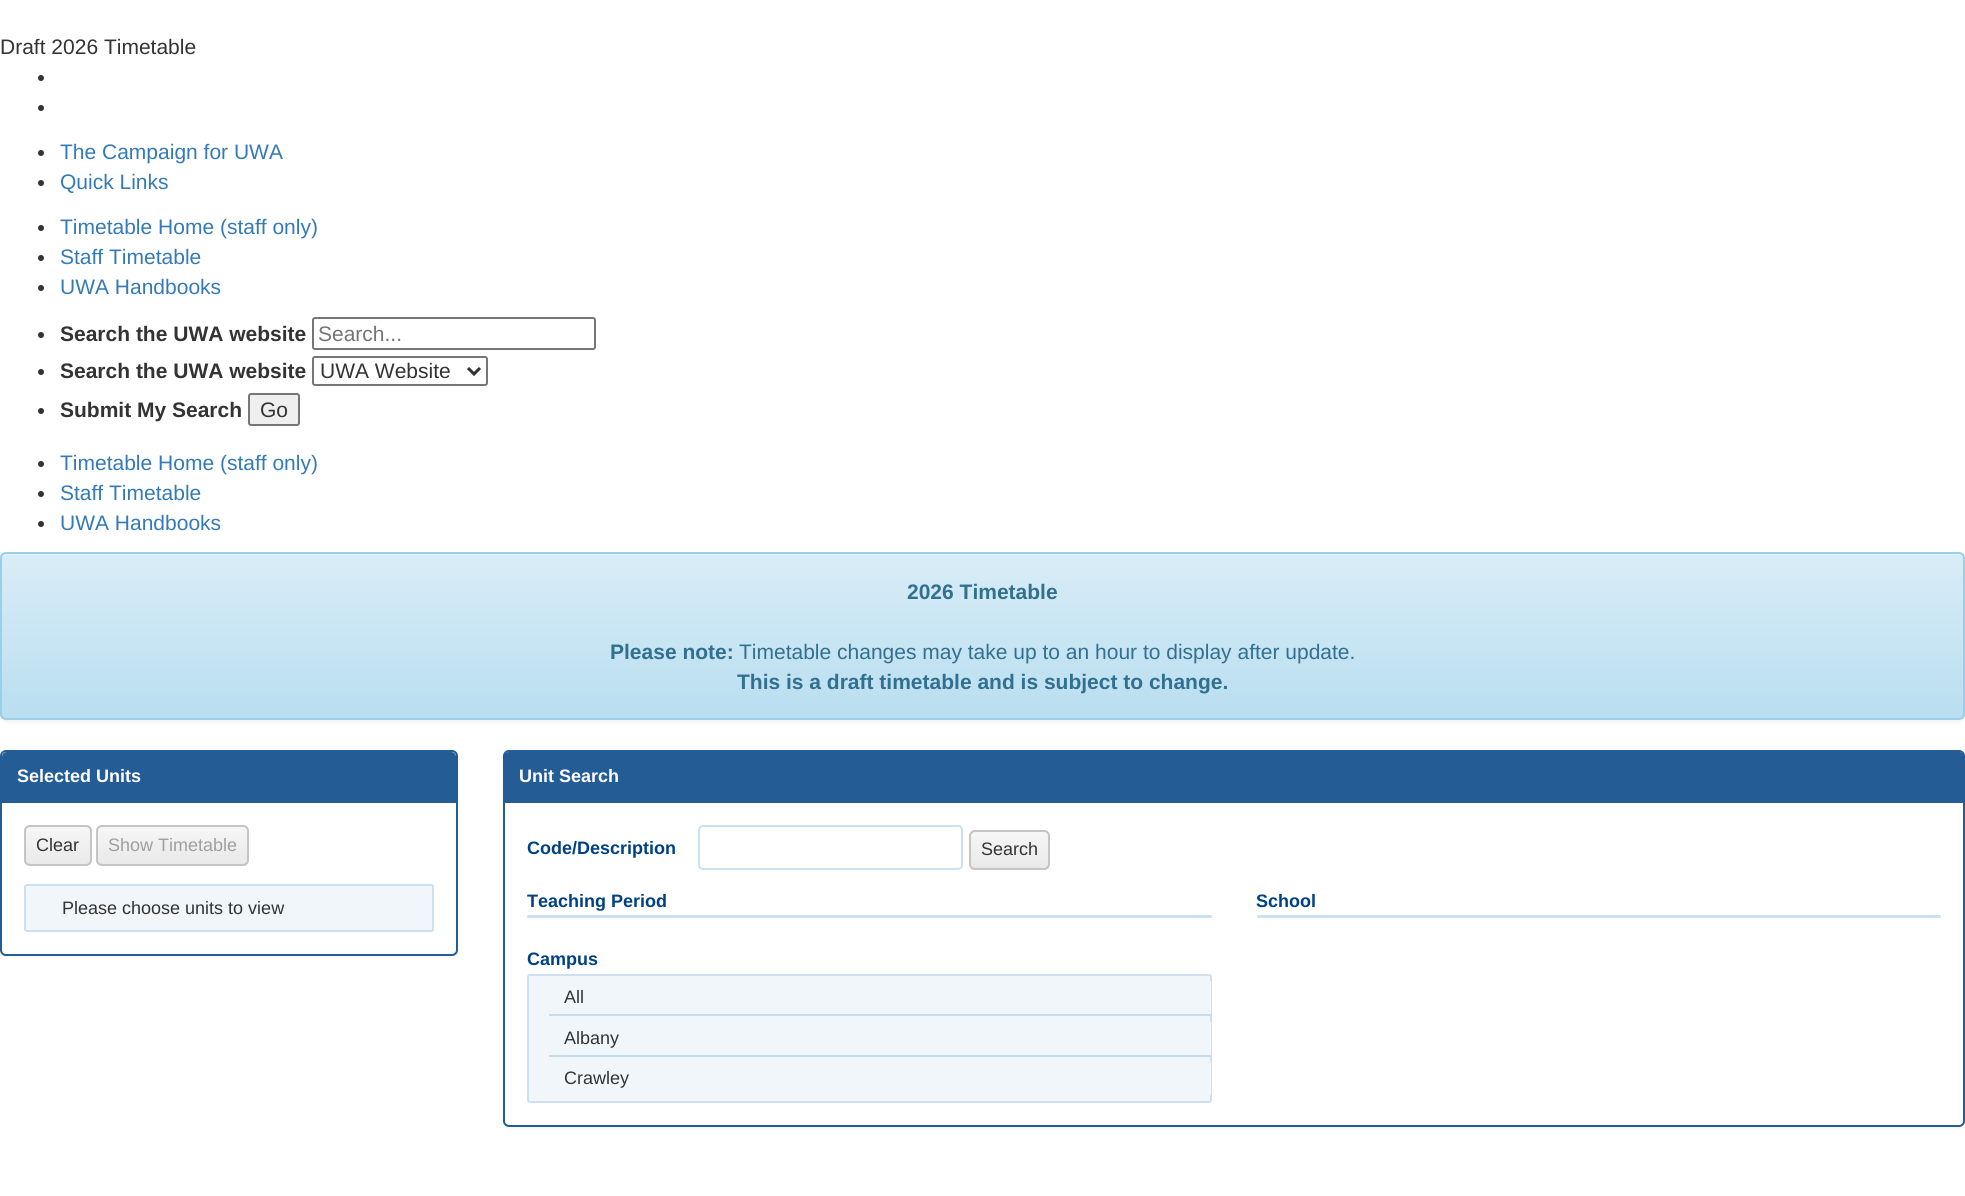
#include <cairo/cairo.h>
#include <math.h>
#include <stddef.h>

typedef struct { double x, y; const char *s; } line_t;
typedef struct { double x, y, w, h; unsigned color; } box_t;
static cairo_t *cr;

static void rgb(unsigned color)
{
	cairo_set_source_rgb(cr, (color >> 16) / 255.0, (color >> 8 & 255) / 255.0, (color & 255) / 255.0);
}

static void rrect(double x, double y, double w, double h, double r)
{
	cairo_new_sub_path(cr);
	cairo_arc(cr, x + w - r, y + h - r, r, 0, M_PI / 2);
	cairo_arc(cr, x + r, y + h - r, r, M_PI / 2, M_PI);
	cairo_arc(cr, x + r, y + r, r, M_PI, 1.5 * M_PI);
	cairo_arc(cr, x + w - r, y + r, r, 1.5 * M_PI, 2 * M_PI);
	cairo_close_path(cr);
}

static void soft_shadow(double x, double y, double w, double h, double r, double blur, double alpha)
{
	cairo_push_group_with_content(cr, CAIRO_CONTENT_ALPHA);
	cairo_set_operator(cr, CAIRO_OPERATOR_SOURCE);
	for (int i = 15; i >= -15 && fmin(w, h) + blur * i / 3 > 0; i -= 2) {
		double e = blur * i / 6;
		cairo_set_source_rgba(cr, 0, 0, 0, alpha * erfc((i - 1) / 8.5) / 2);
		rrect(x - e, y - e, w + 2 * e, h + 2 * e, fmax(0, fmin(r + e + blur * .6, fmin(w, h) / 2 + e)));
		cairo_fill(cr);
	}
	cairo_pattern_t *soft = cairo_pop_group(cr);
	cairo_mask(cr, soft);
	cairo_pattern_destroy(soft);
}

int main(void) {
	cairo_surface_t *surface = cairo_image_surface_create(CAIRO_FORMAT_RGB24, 1965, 1196);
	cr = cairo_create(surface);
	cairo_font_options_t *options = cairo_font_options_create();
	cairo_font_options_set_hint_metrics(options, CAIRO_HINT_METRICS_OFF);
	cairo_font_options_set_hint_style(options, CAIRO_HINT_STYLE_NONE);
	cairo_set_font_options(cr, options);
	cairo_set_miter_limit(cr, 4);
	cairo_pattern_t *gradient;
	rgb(0xffffff);
	cairo_paint(cr);
	rgb(0x333333);
	cairo_arc(cr, 41, 78, 3, 0, 2 * M_PI);
	cairo_fill(cr);
	cairo_arc(cr, 41, 108, 3, 0, 2 * M_PI);
	cairo_fill(cr);
	cairo_arc(cr, 41, 153, 3, 0, 2 * M_PI);
	cairo_fill(cr);
	cairo_arc(cr, 41, 183, 3, 0, 2 * M_PI);
	cairo_fill(cr);
	cairo_arc(cr, 41, 228, 3, 0, 2 * M_PI);
	cairo_fill(cr);
	cairo_arc(cr, 41, 258, 3, 0, 2 * M_PI);
	cairo_fill(cr);
	cairo_arc(cr, 41, 288, 3, 0, 2 * M_PI);
	cairo_fill(cr);
	cairo_arc(cr, 41, 335, 3, 0, 2 * M_PI);
	cairo_fill(cr);
	rrect(313, 318, 282, 31, 2);
	rgb(0x767676);
	cairo_stroke(cr);
	rgb(0x333333);
	cairo_arc(cr, 41, 372, 3, 0, 2 * M_PI);
	cairo_fill(cr);
	rrect(313, 357, 174, 28, 2);
	rgb(0x767676);
	cairo_stroke(cr);
	cairo_new_path(cr);
	cairo_move_to(cr, 468, 368);
	cairo_line_to(cr, 474, 374);
	cairo_line_to(cr, 480, 368);
	rgb(0x333333);
	cairo_set_line_width(cr, 3);
	cairo_stroke(cr);
	cairo_arc(cr, 41, 411, 3, 0, 2 * M_PI);
	cairo_fill(cr);
	rgb(0xefefef);
	rrect(249, 394, 50, 31, 2);
	cairo_fill_preserve(cr);
	rgb(0x767676);
	cairo_set_line_width(cr, 2);
	cairo_stroke(cr);
	rgb(0x333333);
	cairo_arc(cr, 41, 464, 3, 0, 2 * M_PI);
	cairo_fill(cr);
	cairo_arc(cr, 41, 494, 3, 0, 2 * M_PI);
	cairo_fill(cr);
	cairo_arc(cr, 41, 524, 3, 0, 2 * M_PI);
	cairo_fill(cr);
	rgb(0x000000);
	soft_shadow(0, 554, 1965, 168, 6, 1.5, 0.05);
	cairo_save(cr);
	rrect(0, 552, 1965, 168, 6);
	cairo_clip(cr);
	gradient = cairo_pattern_create_linear(983, 553, 983, 719);
	cairo_pattern_add_color_stop_rgba(gradient, 0, 0.851, 0.929, 0.969, 1);
	cairo_pattern_add_color_stop_rgba(gradient, 1, 0.725, 0.871, 0.941, 1);
	cairo_set_source(cr, gradient);
	cairo_pattern_destroy(gradient);
	cairo_rectangle(cr, 0, 554, 1965, 165);
	cairo_fill(cr);
	cairo_restore(cr);
	rgb(0xe2f2f9);
	cairo_new_path(cr);
	cairo_move_to(cr, 6, 555);
	cairo_line_to(cr, 1959, 555);
	cairo_curve_to(cr, 1961, 555, 1964, 557, 1964, 560);
	cairo_line_to(cr, 1964, 559);
	cairo_curve_to(cr, 1964, 556, 1962, 554, 1959, 554);
	cairo_line_to(cr, 7, 554);
	cairo_curve_to(cr, 4, 554, 2, 556, 2, 559);
	cairo_line_to(cr, 2, 560);
	cairo_curve_to(cr, 2, 557, 4, 555, 6, 555);
	cairo_close_path(cr);
	cairo_fill(cr);
	rrect(1, 553, 1963, 166, 5);
	rgb(0x9acfea);
	cairo_stroke(cr);
	rgb(0x000000);
	soft_shadow(0, 752, 458, 205, 6, 1.5, 0.05);
	rgb(0xffffff);
	rrect(1, 751, 456, 204, 5);
	cairo_fill_preserve(cr);
	rgb(0x245c96);
	cairo_stroke(cr);
	cairo_new_path(cr);
	cairo_move_to(cr, 7, 752);
	cairo_line_to(cr, 451, 752);
	cairo_curve_to(cr, 454, 752, 456, 754, 456, 757);
	cairo_line_to(cr, 456, 803);
	cairo_line_to(cr, 2, 803);
	cairo_line_to(cr, 2, 757);
	cairo_curve_to(cr, 2, 754, 4, 752, 7, 752);
	cairo_close_path(cr);
	cairo_fill(cr);
	rgb(0xe9e9e9);
	rrect(24, 825, 68, 41, 6);
	cairo_fill(cr);
	cairo_save(cr);
	rrect(24, 825, 68, 41, 6);
	cairo_clip(cr);
	gradient = cairo_pattern_create_linear(58, 827, 58, 864);
	cairo_pattern_add_color_stop_rgba(gradient, 0, 1, 1, 1, 0.6);
	cairo_pattern_add_color_stop_rgba(gradient, 1, 1, 1, 1, 0);
	cairo_set_source(cr, gradient);
	cairo_pattern_destroy(gradient);
	cairo_rectangle(cr, 24, 827, 68, 36);
	cairo_fill(cr);
	cairo_restore(cr);
	rrect(25, 826, 66, 39, 5);
	rgb(0xc5c5c5);
	cairo_stroke(cr);
	rgb(0xe9e9e9);
	rrect(96, 825, 153, 41, 6);
	cairo_fill(cr);
	cairo_save(cr);
	rrect(96, 825, 153, 41, 6);
	cairo_clip(cr);
	gradient = cairo_pattern_create_linear(173, 827, 173, 864);
	cairo_pattern_add_color_stop_rgba(gradient, 0, 1, 1, 1, 0.6);
	cairo_pattern_add_color_stop_rgba(gradient, 1, 1, 1, 1, 0);
	cairo_set_source(cr, gradient);
	cairo_pattern_destroy(gradient);
	cairo_rectangle(cr, 96, 827, 153, 36);
	cairo_fill(cr);
	cairo_restore(cr);
	rrect(97, 826, 151, 39, 5);
	rgb(0xc5c5c5);
	cairo_stroke(cr);
	rgb(0xf1f6fa);
	rrect(25, 885, 408, 46, 2);
	cairo_fill_preserve(cr);
	rgb(0xcce0f1);
	cairo_stroke(cr);
	rgb(0x000000);
	soft_shadow(503, 752, 1462, 376, 6, 1.5, 0.05);
	rgb(0xffffff);
	rrect(504, 751, 1460, 375, 5);
	cairo_fill_preserve(cr);
	rgb(0x245c96);
	cairo_stroke(cr);
	cairo_new_path(cr);
	cairo_move_to(cr, 509, 752);
	cairo_line_to(cr, 1959, 752);
	cairo_curve_to(cr, 1962, 752, 1964, 754, 1964, 757);
	cairo_line_to(cr, 1964, 803);
	cairo_line_to(cr, 504, 803);
	cairo_line_to(cr, 504, 757);
	cairo_curve_to(cr, 504, 754, 506, 752, 509, 752);
	cairo_close_path(cr);
	cairo_fill(cr);
	rrect(699, 826, 263, 43, 4);
	rgb(0xcce0f1);
	cairo_stroke(cr);
	rgb(0xe9e9e9);
	rrect(969, 830, 81, 40, 6);
	cairo_fill(cr);
	cairo_save(cr);
	rrect(969, 830, 81, 40, 6);
	cairo_clip(cr);
	gradient = cairo_pattern_create_linear(1010, 831, 1010, 869);
	cairo_pattern_add_color_stop_rgba(gradient, 0, 1, 1, 1, 0.6);
	cairo_pattern_add_color_stop_rgba(gradient, 1, 1, 1, 1, 0);
	cairo_set_source(cr, gradient);
	cairo_pattern_destroy(gradient);
	cairo_rectangle(cr, 969, 831, 81, 37);
	cairo_fill(cr);
	cairo_restore(cr);
	rrect(970, 831, 79, 38, 5);
	rgb(0xc5c5c5);
	cairo_stroke(cr);
	rgb(0xcce0f1);
	rrect(527, 915, 685, 3, 1.5);
	cairo_fill(cr);
	rgb(0xf1f6fa);
	rrect(528, 975, 683, 127, 2);
	cairo_fill_preserve(cr);
	rgb(0xcce0f1);
	cairo_stroke(cr);
	{
		static const box_t items[] = {
			{1210, 981, 1, 33, 0xf1f6fa},
			{549, 1014, 662, 2, 0xc5dcef},
			{1210, 1022, 1, 33, 0xf1f6fa},
			{549, 1055, 662, 2, 0xc5dcef},
			{1210, 1062, 1, 33, 0xf1f6fa},
		};
		for (size_t i = 0; i < sizeof items / sizeof *items; i++) {
			rgb(items[i].color);
			cairo_rectangle(cr, items[i].x, items[i].y, items[i].w, items[i].h);
			cairo_fill(cr);
		}
	}
	rgb(0xcce0f1);
	rrect(1257, 915, 684, 3, 1.5);
	cairo_fill(cr);
	cairo_select_font_face(cr, "Liberation Sans", CAIRO_FONT_SLANT_NORMAL, CAIRO_FONT_WEIGHT_NORMAL);
	cairo_set_font_size(cr, 21);
	rgb(0x333333);
	cairo_move_to(cr, 0, 54);
	cairo_show_text(cr, "Draft 2026 Timetable");
	rgb(0x337ab7);
	{
		static const line_t items[] = {
			{60, 159, "The Campaign for UWA"},
			{60, 189, "Quick Links"},
			{60, 234, "Timetable Home (staff only)"},
			{60, 264, "Staff Timetable"},
			{60, 294, "UWA Handbooks"},
		};
		for (size_t i = 0; i < sizeof items / sizeof *items; i++) {
			cairo_move_to(cr, items[i].x, items[i].y);
			cairo_show_text(cr, items[i].s);
		}
	}
	cairo_select_font_face(cr, "Liberation Sans", CAIRO_FONT_SLANT_NORMAL, CAIRO_FONT_WEIGHT_BOLD);
	rgb(0x333333);
	cairo_move_to(cr, 60, 341);
	cairo_show_text(cr, "Search the UWA website");
	cairo_select_font_face(cr, "Liberation Sans", CAIRO_FONT_SLANT_NORMAL, CAIRO_FONT_WEIGHT_NORMAL);
	rgb(0x757575);
	cairo_move_to(cr, 318, 341);
	cairo_show_text(cr, "Search...");
	cairo_select_font_face(cr, "Liberation Sans", CAIRO_FONT_SLANT_NORMAL, CAIRO_FONT_WEIGHT_BOLD);
	rgb(0x333333);
	cairo_move_to(cr, 60, 378);
	cairo_show_text(cr, "Search the UWA website");
	cairo_select_font_face(cr, "Liberation Sans", CAIRO_FONT_SLANT_NORMAL, CAIRO_FONT_WEIGHT_NORMAL);
	cairo_move_to(cr, 320, 378);
	cairo_show_text(cr, "UWA Website");
	cairo_select_font_face(cr, "Liberation Sans", CAIRO_FONT_SLANT_NORMAL, CAIRO_FONT_WEIGHT_BOLD);
	cairo_move_to(cr, 60, 417);
	cairo_show_text(cr, "Submit My Search");
	cairo_select_font_face(cr, "Liberation Sans", CAIRO_FONT_SLANT_NORMAL, CAIRO_FONT_WEIGHT_NORMAL);
	cairo_move_to(cr, 260, 417);
	cairo_show_text(cr, "Go");
	rgb(0x337ab7);
	{
		static const line_t items[] = {
			{60, 470, "Timetable Home (staff only)"},
			{60, 500, "Staff Timetable"},
			{60, 530, "UWA Handbooks"},
		};
		for (size_t i = 0; i < sizeof items / sizeof *items; i++) {
			cairo_move_to(cr, items[i].x, items[i].y);
			cairo_show_text(cr, items[i].s);
		}
	}
	cairo_select_font_face(cr, "Liberation Sans", CAIRO_FONT_SLANT_NORMAL, CAIRO_FONT_WEIGHT_BOLD);
	rgb(0x31708f);
	cairo_move_to(cr, 907, 599);
	cairo_show_text(cr, "2026 Timetable");
	cairo_move_to(cr, 610, 659);
	cairo_show_text(cr, "Please note:");
	cairo_select_font_face(cr, "Liberation Sans", CAIRO_FONT_SLANT_NORMAL, CAIRO_FONT_WEIGHT_NORMAL);
	cairo_move_to(cr, 739, 659);
	cairo_show_text(cr, "Timetable changes may take up to an hour to display after update.");
	cairo_select_font_face(cr, "Liberation Sans", CAIRO_FONT_SLANT_NORMAL, CAIRO_FONT_WEIGHT_BOLD);
	cairo_move_to(cr, 737, 689);
	cairo_show_text(cr, "This is a draft timetable and is subject to change.");
	cairo_set_font_size(cr, 18);
	rgb(0xffffff);
	cairo_move_to(cr, 17, 782);
	cairo_show_text(cr, "Selected Units");
	cairo_select_font_face(cr, "Liberation Sans", CAIRO_FONT_SLANT_NORMAL, CAIRO_FONT_WEIGHT_NORMAL);
	rgb(0x333333);
	cairo_move_to(cr, 36, 851);
	cairo_show_text(cr, "Clear");
	rgb(0x9f9f9f);
	cairo_move_to(cr, 108, 851);
	cairo_show_text(cr, "Show Timetable");
	rgb(0x333333);
	cairo_move_to(cr, 62, 914);
	cairo_show_text(cr, "Please choose units to view");
	cairo_select_font_face(cr, "Liberation Sans", CAIRO_FONT_SLANT_NORMAL, CAIRO_FONT_WEIGHT_BOLD);
	rgb(0xffffff);
	cairo_move_to(cr, 519, 782);
	cairo_show_text(cr, "Unit Search");
	rgb(0x004185);
	cairo_move_to(cr, 527, 854);
	cairo_show_text(cr, "Code/Description");
	cairo_select_font_face(cr, "Liberation Sans", CAIRO_FONT_SLANT_NORMAL, CAIRO_FONT_WEIGHT_NORMAL);
	rgb(0x333333);
	cairo_move_to(cr, 981, 855);
	cairo_show_text(cr, "Search");
	cairo_select_font_face(cr, "Liberation Sans", CAIRO_FONT_SLANT_NORMAL, CAIRO_FONT_WEIGHT_BOLD);
	rgb(0x004185);
	cairo_move_to(cr, 527, 907);
	cairo_show_text(cr, "Teaching Period");
	cairo_move_to(cr, 527, 965);
	cairo_show_text(cr, "Campus");
	cairo_select_font_face(cr, "Liberation Sans", CAIRO_FONT_SLANT_NORMAL, CAIRO_FONT_WEIGHT_NORMAL);
	rgb(0x333333);
	{
		static const line_t items[] = {
			{564, 1003, "All"},
			{564, 1044, "Albany"},
			{564, 1084, "Crawley"},
		};
		for (size_t i = 0; i < sizeof items / sizeof *items; i++) {
			cairo_move_to(cr, items[i].x, items[i].y);
			cairo_show_text(cr, items[i].s);
		}
	}
	cairo_select_font_face(cr, "Liberation Sans", CAIRO_FONT_SLANT_NORMAL, CAIRO_FONT_WEIGHT_BOLD);
	rgb(0x004185);
	cairo_move_to(cr, 1256, 907);
	cairo_show_text(cr, "School");
	cairo_surface_write_to_png(surface, "page.png");
	cairo_font_options_destroy(options);
	cairo_destroy(cr);
	cairo_surface_destroy(surface);
	return 0;
}
